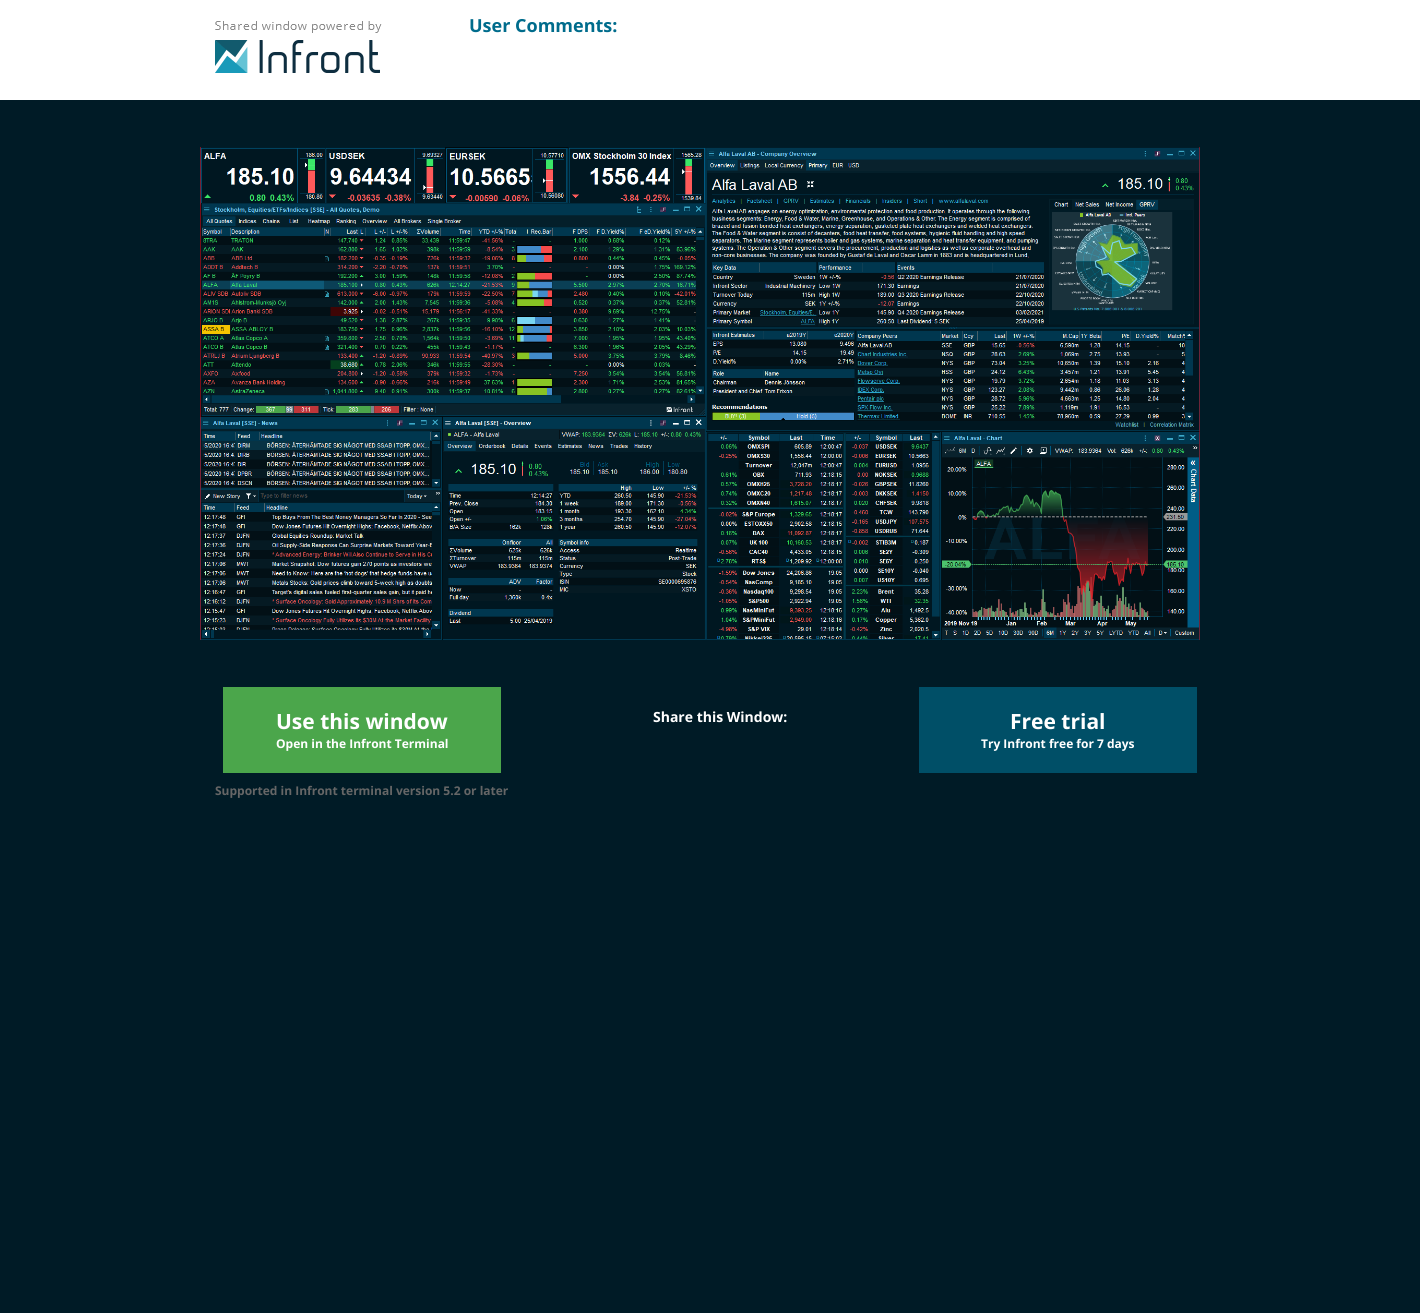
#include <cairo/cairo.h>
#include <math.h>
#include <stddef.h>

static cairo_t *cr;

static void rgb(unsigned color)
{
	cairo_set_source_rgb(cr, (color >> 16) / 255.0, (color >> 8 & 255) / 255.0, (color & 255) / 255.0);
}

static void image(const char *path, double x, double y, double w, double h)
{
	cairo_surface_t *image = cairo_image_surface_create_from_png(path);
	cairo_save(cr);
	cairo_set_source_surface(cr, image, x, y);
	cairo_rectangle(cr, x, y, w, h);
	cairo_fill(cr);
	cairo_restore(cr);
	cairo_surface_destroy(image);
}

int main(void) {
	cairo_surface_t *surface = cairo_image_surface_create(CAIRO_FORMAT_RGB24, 1420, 1313);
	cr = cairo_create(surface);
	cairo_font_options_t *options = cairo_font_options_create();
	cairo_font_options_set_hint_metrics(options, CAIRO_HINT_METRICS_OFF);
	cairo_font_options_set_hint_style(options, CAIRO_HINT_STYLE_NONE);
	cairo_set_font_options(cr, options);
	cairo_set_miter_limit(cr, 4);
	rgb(0x001b26);
	cairo_paint(cr);
	rgb(0xffffff);
	cairo_rectangle(cr, 0, 0, 1420, 100);
	cairo_fill(cr);
	image("img/1.png", 215, 21, 167, 52);
	image("img/2.png", 200, 147, 1000, 493);
	rgb(0x4ba64b);
	cairo_rectangle(cr, 223, 687, 278, 86);
	cairo_fill(cr);
	rgb(0x004f67);
	cairo_rectangle(cr, 919, 687, 278, 86);
	cairo_fill(cr);
	cairo_select_font_face(cr, "Open Sans", CAIRO_FONT_SLANT_NORMAL, CAIRO_FONT_WEIGHT_BOLD);
	cairo_set_font_size(cr, 18);
	rgb(0x006c8c);
	cairo_move_to(cr, 469, 32);
	cairo_show_text(cr, "User Comments:");
	cairo_set_font_size(cr, 21);
	rgb(0xffffff);
	cairo_move_to(cr, 276, 729);
	cairo_show_text(cr, "Use this window");
	cairo_set_font_size(cr, 12);
	cairo_move_to(cr, 276, 748);
	cairo_show_text(cr, "Open in the Infront Terminal");
	rgb(0x666666);
	cairo_move_to(cr, 215, 795);
	cairo_show_text(cr, "Supported in Infront terminal version 5.2 or later");
	cairo_set_font_size(cr, 14);
	rgb(0xffffff);
	cairo_move_to(cr, 653, 722);
	cairo_show_text(cr, "Share this Window:");
	cairo_set_font_size(cr, 21);
	cairo_move_to(cr, 1010, 729);
	cairo_show_text(cr, "Free trial");
	cairo_set_font_size(cr, 12);
	cairo_move_to(cr, 981, 748);
	cairo_show_text(cr, "Try Infront free for 7 days");
	cairo_surface_write_to_png(surface, "page.png");
	cairo_font_options_destroy(options);
	cairo_destroy(cr);
	cairo_surface_destroy(surface);
	return 0;
}
